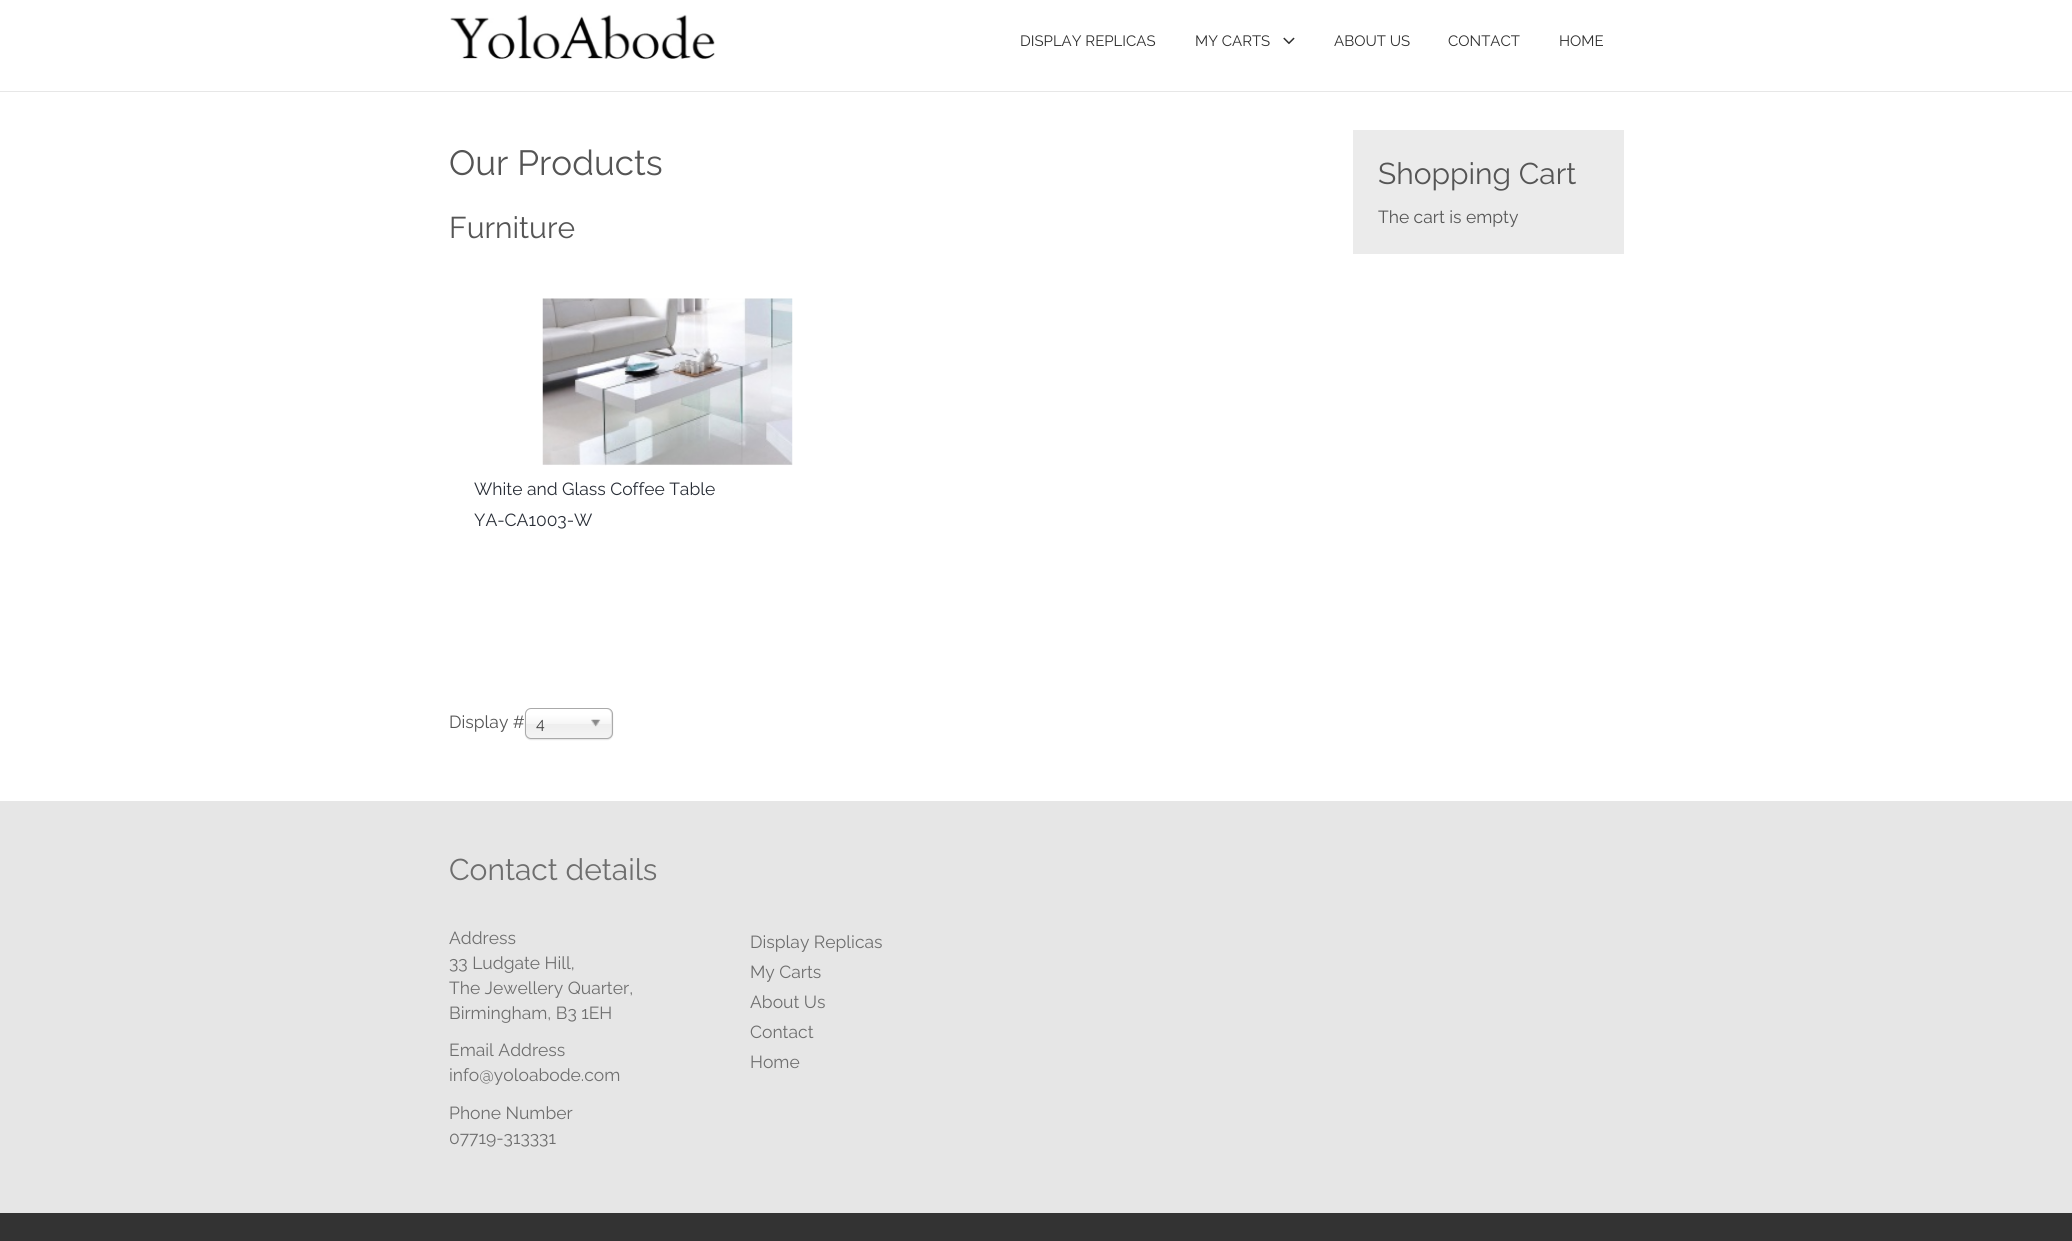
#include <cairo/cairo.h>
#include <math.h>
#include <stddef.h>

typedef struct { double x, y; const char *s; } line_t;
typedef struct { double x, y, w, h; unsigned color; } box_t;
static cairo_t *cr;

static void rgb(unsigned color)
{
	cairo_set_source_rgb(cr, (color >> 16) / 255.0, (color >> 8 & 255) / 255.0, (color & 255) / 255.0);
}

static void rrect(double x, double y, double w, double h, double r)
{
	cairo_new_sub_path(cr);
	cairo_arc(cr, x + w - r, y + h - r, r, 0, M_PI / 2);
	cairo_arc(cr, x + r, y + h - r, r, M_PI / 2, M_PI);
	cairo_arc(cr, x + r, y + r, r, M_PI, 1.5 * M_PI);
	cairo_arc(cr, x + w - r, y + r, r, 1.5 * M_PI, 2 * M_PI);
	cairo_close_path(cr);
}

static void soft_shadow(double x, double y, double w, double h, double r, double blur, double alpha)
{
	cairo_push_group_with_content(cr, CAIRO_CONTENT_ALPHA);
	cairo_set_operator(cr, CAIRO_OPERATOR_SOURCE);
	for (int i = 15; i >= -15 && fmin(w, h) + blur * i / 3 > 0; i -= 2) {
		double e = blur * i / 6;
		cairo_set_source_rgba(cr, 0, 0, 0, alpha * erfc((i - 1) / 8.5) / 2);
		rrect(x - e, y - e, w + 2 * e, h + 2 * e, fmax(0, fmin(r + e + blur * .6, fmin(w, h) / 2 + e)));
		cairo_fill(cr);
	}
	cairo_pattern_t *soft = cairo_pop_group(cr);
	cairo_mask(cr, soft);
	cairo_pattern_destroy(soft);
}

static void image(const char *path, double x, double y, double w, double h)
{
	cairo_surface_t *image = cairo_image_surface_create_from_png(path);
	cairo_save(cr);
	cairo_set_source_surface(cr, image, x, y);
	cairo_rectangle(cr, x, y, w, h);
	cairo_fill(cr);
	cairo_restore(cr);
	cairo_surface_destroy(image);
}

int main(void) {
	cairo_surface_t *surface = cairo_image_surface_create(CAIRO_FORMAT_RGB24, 2072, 1241);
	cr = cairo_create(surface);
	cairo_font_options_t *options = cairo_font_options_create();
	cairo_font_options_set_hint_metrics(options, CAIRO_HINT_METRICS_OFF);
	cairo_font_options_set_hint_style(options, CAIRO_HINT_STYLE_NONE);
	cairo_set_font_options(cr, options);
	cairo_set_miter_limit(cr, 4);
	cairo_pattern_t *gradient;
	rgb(0xffffff);
	cairo_paint(cr);
	rgb(0xe7e7e7);
	cairo_rectangle(cr, 0, 91, 2072, 1);
	cairo_fill(cr);
	image("img/1.png", 450, 14, 265, 45);
	image("img/2.png", 1283, 37, 12, 8);
	image("img/3.png", 542, 298, 251, 168);
	rgb(0x000000);
	soft_shadow(525, 709, 88, 31, 6, 0.5, 0.1);
	gradient = cairo_pattern_create_linear(569, 709, 569, 738);
	cairo_pattern_add_color_stop_rgba(gradient, 0.2, 1, 1, 1, 1);
	cairo_pattern_add_color_stop_rgba(gradient, 0.5, 0.965, 0.965, 0.965, 1);
	cairo_pattern_add_color_stop_rgba(gradient, 0.52, 0.933, 0.933, 0.933, 1);
	cairo_pattern_add_color_stop_rgba(gradient, 1, 0.957, 0.957, 0.957, 1);
	cairo_set_source(cr, gradient);
	cairo_pattern_destroy(gradient);
	rrect(526, 709, 85, 29, 5);
	cairo_fill(cr);
	rrect(525.5, 708.5, 87, 30, 5.5);
	rgb(0xaaaaaa);
	cairo_set_line_width(cr, 1);
	cairo_stroke(cr);
	image("img/4.png", 591, 719, 10, 8);
	{
		static const box_t items[] = {
			{1353, 130, 271, 124, 0xebebeb},
			{0, 801, 2072, 412, 0xe6e6e6},
			{0, 1213, 2072, 28, 0x333333},
		};
		for (size_t i = 0; i < sizeof items / sizeof *items; i++) {
			rgb(items[i].color);
			cairo_rectangle(cr, items[i].x, items[i].y, items[i].w, items[i].h);
			cairo_fill(cr);
		}
	}
	cairo_select_font_face(cr, "Raleway Thin", CAIRO_FONT_SLANT_NORMAL, CAIRO_FONT_WEIGHT_NORMAL);
	cairo_set_font_size(cr, 15);
	rgb(0x2f2f2f);
	{
		static const line_t items[] = {
			{1020, 46, "DISPLAY REPLICAS"},
			{1195, 46, "MY CARTS"},
			{1334, 46, "ABOUT US"},
			{1448, 46, "CONTACT"},
			{1559, 46, "HOME"},
		};
		for (size_t i = 0; i < sizeof items / sizeof *items; i++) {
			cairo_move_to(cr, items[i].x, items[i].y);
			cairo_show_text(cr, items[i].s);
		}
	}
	cairo_set_font_size(cr, 35);
	rgb(0x555555);
	cairo_move_to(cr, 449, 175);
	cairo_show_text(cr, "Our Products");
	cairo_set_font_size(cr, 30);
	cairo_move_to(cr, 449, 238);
	cairo_show_text(cr, "Furniture");
	cairo_set_font_size(cr, 17.5);
	rgb(0x292e37);
	cairo_move_to(cr, 474, 495);
	cairo_show_text(cr, "White and Glass Coffee Table");
	cairo_move_to(cr, 474, 526);
	cairo_show_text(cr, "YA-CA1003-W");
	rgb(0x555555);
	cairo_move_to(cr, 449, 728);
	cairo_show_text(cr, "Display #");
	cairo_set_font_size(cr, 16);
	rgb(0x444444);
	cairo_move_to(cr, 536, 729);
	cairo_show_text(cr, "4");
	cairo_set_font_size(cr, 30);
	rgb(0x555555);
	cairo_move_to(cr, 1378, 184);
	cairo_show_text(cr, "Shopping Cart");
	cairo_set_font_size(cr, 17.5);
	cairo_move_to(cr, 1378, 223);
	cairo_show_text(cr, "The cart is empty");
	cairo_set_font_size(cr, 30);
	rgb(0x6e6e6e);
	cairo_move_to(cr, 449, 880);
	cairo_show_text(cr, "Contact details");
	cairo_set_font_size(cr, 17.5);
	{
		static const line_t items[] = {
			{449, 944, "Address"},
			{449, 969, "33 Ludgate Hill,"},
			{449, 994, "The Jewellery Quarter,"},
			{449, 1019, "Birmingham, B3 1EH"},
			{449, 1056, "Email Address"},
			{449, 1081, "info@yoloabode.com"},
			{449, 1119, "Phone Number"},
			{449, 1144, "07719-313331"},
			{750, 948, "Display Replicas"},
			{750, 978, "My Carts"},
			{750, 1008, "About Us"},
			{750, 1038, "Contact"},
			{750, 1068, "Home"},
		};
		for (size_t i = 0; i < sizeof items / sizeof *items; i++) {
			cairo_move_to(cr, items[i].x, items[i].y);
			cairo_show_text(cr, items[i].s);
		}
	}
	cairo_surface_write_to_png(surface, "page.png");
	cairo_font_options_destroy(options);
	cairo_destroy(cr);
	cairo_surface_destroy(surface);
	return 0;
}
